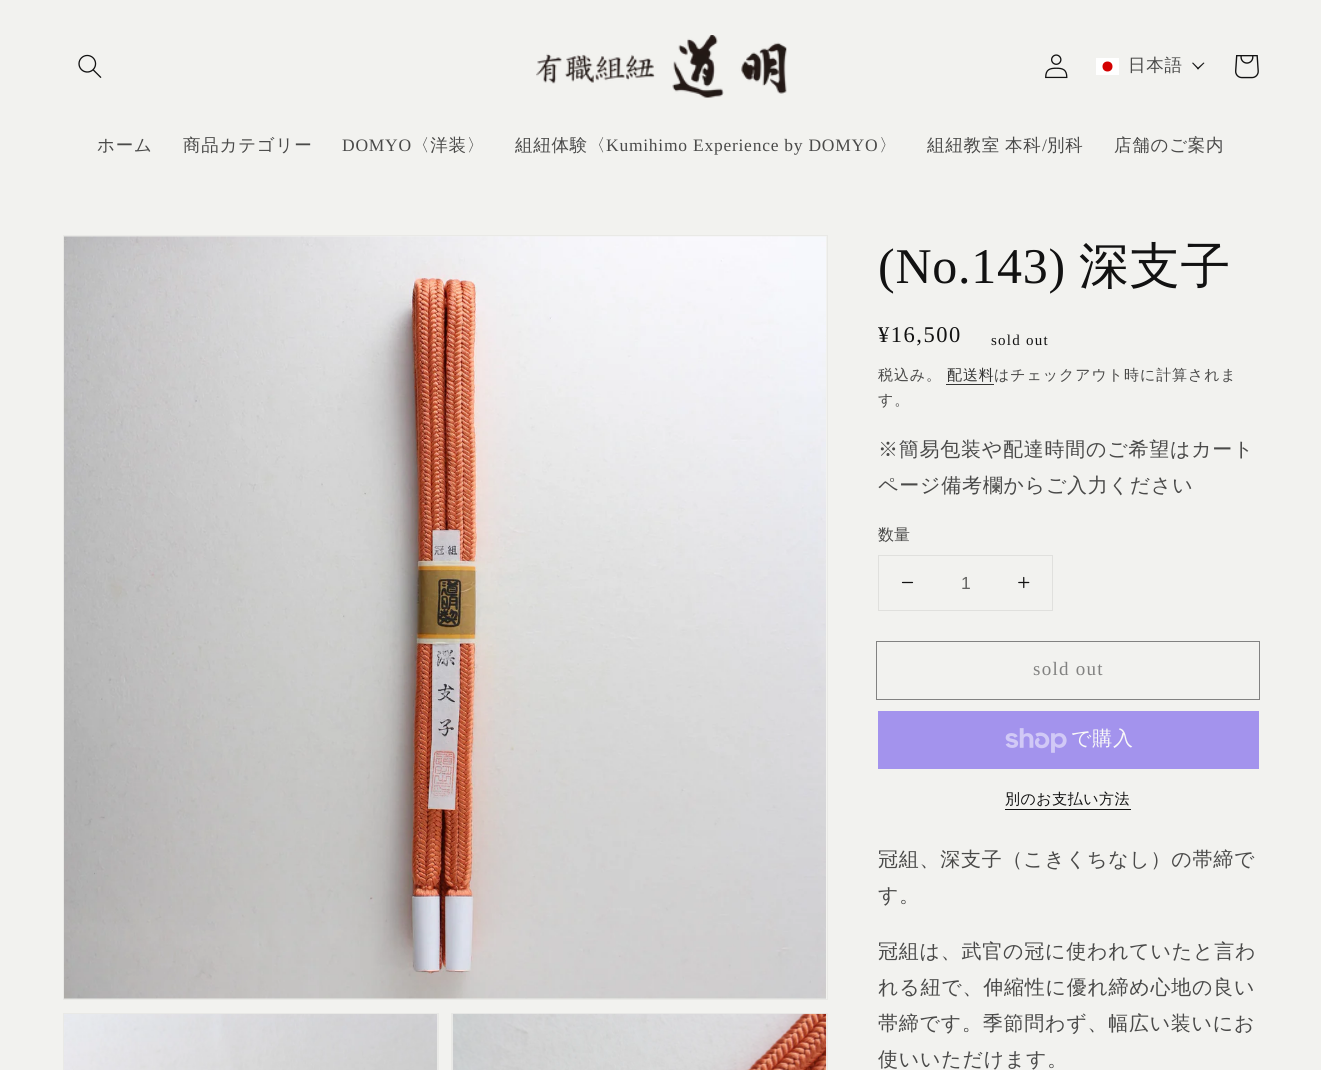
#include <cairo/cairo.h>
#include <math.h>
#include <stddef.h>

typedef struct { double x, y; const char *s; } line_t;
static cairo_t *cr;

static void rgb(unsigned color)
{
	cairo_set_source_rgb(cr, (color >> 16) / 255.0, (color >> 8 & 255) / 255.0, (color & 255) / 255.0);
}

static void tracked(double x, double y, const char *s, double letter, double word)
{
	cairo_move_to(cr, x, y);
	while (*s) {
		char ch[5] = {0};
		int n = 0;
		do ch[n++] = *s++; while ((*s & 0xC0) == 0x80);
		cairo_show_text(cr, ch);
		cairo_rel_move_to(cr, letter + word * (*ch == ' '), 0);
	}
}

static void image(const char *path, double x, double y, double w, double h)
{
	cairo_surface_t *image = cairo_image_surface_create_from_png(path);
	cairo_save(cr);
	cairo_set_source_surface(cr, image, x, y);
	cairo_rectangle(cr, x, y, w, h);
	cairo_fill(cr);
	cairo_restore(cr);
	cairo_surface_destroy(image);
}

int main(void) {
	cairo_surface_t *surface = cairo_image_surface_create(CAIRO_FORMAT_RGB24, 1321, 1070);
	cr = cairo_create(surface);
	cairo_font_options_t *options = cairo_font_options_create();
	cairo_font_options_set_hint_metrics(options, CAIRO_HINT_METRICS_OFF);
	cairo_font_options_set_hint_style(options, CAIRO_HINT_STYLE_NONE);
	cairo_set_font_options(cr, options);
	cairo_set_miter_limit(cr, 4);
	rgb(0xf2f2ef);
	cairo_paint(cr);
	image("img/1.png", 78, 54, 24, 24);
	image("img/2.png", 536, 35, 251, 63);
	image("img/3.png", 1045, 54, 23, 25);
	rgb(0xffffff);
	cairo_rectangle(cr, 1096, 58, 23, 17);
	cairo_fill(cr);
	rgb(0xd30000);
	cairo_arc(cr, 1107.5, 66.5, 5, 0, 2 * M_PI);
	cairo_fill(cr);
	rgb(0x181818);
	cairo_new_path(cr);
	cairo_move_to(cr, 1203.5, 62.5);
	cairo_line_to(cr, 1204.5, 63);
	cairo_line_to(cr, 1198, 69.5);
	cairo_line_to(cr, 1197, 68.5);
	cairo_close_path(cr);
	cairo_fill(cr);
	cairo_new_path(cr);
	cairo_move_to(cr, 1193, 62.5);
	cairo_line_to(cr, 1199, 68.5);
	cairo_line_to(cr, 1198, 69.5);
	cairo_line_to(cr, 1192, 63);
	cairo_close_path(cr);
	cairo_fill(cr);
	image("img/4.png", 1235, 55, 24, 24);
	cairo_rectangle(cr, 63.5, 235.5, 764, 764);
	rgb(0xe9e9e6);
	cairo_set_line_width(cr, 1);
	cairo_stroke(cr);
	image("img/5.png", 64, 236, 762, 763);
	cairo_rectangle(cr, 63.5, 1013.5, 375, 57);
	cairo_stroke(cr);
	image("img/6.png", 64, 1014, 374, 56);
	cairo_rectangle(cr, 451.5, 1013.5, 376, 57);
	cairo_stroke(cr);
	image("img/7.png", 452, 1013, 375, 57);
	rgb(0x343433);
	cairo_rectangle(cr, 946, 384, 48, 1);
	cairo_fill(cr);
	cairo_rectangle(cr, 878.5, 555.5, 174, 55);
	rgb(0xe0e0dd);
	cairo_stroke(cr);
	image("img/8.png", 901, 581, 13, 3);
	image("img/9.png", 1018, 576, 12, 13);
	cairo_rectangle(cr, 876.5, 641.5, 383, 58);
	rgb(0x828281);
	cairo_stroke(cr);
	rgb(0xa393ed);
	cairo_rectangle(cr, 878, 711, 381, 58);
	cairo_fill(cr);
	image("img/10.png", 1005, 728, 62, 25);
	rgb(0x121212);
	cairo_rectangle(cr, 1005, 809, 126, 1);
	cairo_fill(cr);
	cairo_select_font_face(cr, "WenQuanYi Zen Hei Medium", CAIRO_FONT_SLANT_NORMAL, CAIRO_FONT_WEIGHT_NORMAL);
	cairo_set_font_size(cr, 17.5);
	rgb(0x4a4a49);
	{
		static const line_t items[] = {
			{1128, 71, "日本語"},
			{97, 151, "ホーム"},
			{183, 151, "商品カテゴリー"},
		};
		for (size_t i = 0; i < sizeof items / sizeof *items; i++) {
			tracked(items[i].x, items[i].y, items[i].s, 0.75, 0);
		}
	}
	cairo_select_font_face(cr, "Liberation Serif", CAIRO_FONT_SLANT_NORMAL, CAIRO_FONT_WEIGHT_NORMAL);
	tracked(342, 151, "DOMYO", 0.75, 0);
	cairo_select_font_face(cr, "WenQuanYi Zen Hei Medium", CAIRO_FONT_SLANT_NORMAL, CAIRO_FONT_WEIGHT_NORMAL);
	tracked(412, 151, "〈洋装〉", 0.75, 0);
	tracked(515, 151, "組紐体験〈", 0.75, 0);
	cairo_select_font_face(cr, "Liberation Serif", CAIRO_FONT_SLANT_NORMAL, CAIRO_FONT_WEIGHT_NORMAL);
	tracked(606, 151, "Kumihimo Experience by DOMYO", 0.75, 0);
	cairo_select_font_face(cr, "WenQuanYi Zen Hei Medium", CAIRO_FONT_SLANT_NORMAL, CAIRO_FONT_WEIGHT_NORMAL);
	tracked(879, 151, "〉", 0.75, 0);
	tracked(927, 151, "組紐教室 本科", 0.75, -1);
	cairo_select_font_face(cr, "Liberation Serif", CAIRO_FONT_SLANT_NORMAL, CAIRO_FONT_WEIGHT_NORMAL);
	tracked(1042, 151, "/", 0.75, 0);
	cairo_select_font_face(cr, "WenQuanYi Zen Hei Medium", CAIRO_FONT_SLANT_NORMAL, CAIRO_FONT_WEIGHT_NORMAL);
	tracked(1047, 151, "別科", 0.75, 0);
	tracked(1114, 151, "店舗のご案内", 0.75, 0);
	cairo_select_font_face(cr, "Liberation Serif", CAIRO_FONT_SLANT_NORMAL, CAIRO_FONT_WEIGHT_NORMAL);
	cairo_set_font_size(cr, 50);
	rgb(0x121212);
	tracked(878, 283, "(No.143)", 0.75, 0);
	cairo_select_font_face(cr, "WenQuanYi Zen Hei Medium", CAIRO_FONT_SLANT_NORMAL, CAIRO_FONT_WEIGHT_NORMAL);
	tracked(1079, 283, "深支子", 0.75, 0);
	cairo_select_font_face(cr, "Liberation Serif", CAIRO_FONT_SLANT_NORMAL, CAIRO_FONT_WEIGHT_NORMAL);
	cairo_set_font_size(cr, 22.5);
	tracked(878, 342, "¥16,500", 1.5, 0);
	cairo_set_font_size(cr, 15);
	tracked(991, 345, "sold out", 1.25, 0);
	cairo_select_font_face(cr, "WenQuanYi Zen Hei Medium", CAIRO_FONT_SLANT_NORMAL, CAIRO_FONT_WEIGHT_NORMAL);
	rgb(0x4a4a49);
	tracked(878, 380, "税込み。", 0.9, 0);
	rgb(0x343433);
	tracked(947, 380, "配送料", 0.9, 0);
	rgb(0x4a4a49);
	tracked(994, 380, "はチェックアウト時に計算されま", 0.9, 0);
	tracked(878, 405, "す。", 0.9, 0);
	cairo_set_font_size(cr, 20);
	tracked(878, 456, "※簡易包装や配達時間のご希望はカート", 0.75, 0);
	tracked(878, 492, "ページ備考欄からご入力ください", 0.75, 0);
	cairo_set_font_size(cr, 16);
	cairo_move_to(cr, 878, 540);
	cairo_show_text(cr, "数量");
	cairo_select_font_face(cr, "Liberation Sans", CAIRO_FONT_SLANT_NORMAL, CAIRO_FONT_WEIGHT_NORMAL);
	cairo_set_font_size(cr, 17.5);
	rgb(0x646462);
	cairo_move_to(cr, 961, 589);
	cairo_show_text(cr, "1");
	cairo_select_font_face(cr, "Liberation Serif", CAIRO_FONT_SLANT_NORMAL, CAIRO_FONT_WEIGHT_NORMAL);
	cairo_set_font_size(cr, 19);
	rgb(0x828281);
	tracked(1033, 675, "sold out", 1.25, 0);
	cairo_select_font_face(cr, "WenQuanYi Zen Hei Medium", CAIRO_FONT_SLANT_NORMAL, CAIRO_FONT_WEIGHT_NORMAL);
	cairo_set_font_size(cr, 20);
	rgb(0xf9f9f7);
	tracked(1071, 745, "で購入", 0.75, 0);
	cairo_set_font_size(cr, 15);
	rgb(0x121212);
	tracked(1005, 804, "別のお支払い方法", 0.5, 0);
	cairo_set_font_size(cr, 20);
	rgb(0x4a4a49);
	{
		static const line_t items[] = {
			{878, 866, "冠組、深支子（こきくちなし）の帯締で"},
			{878, 902, "す。"},
			{878, 958, "冠組は、武官の冠に使われていたと言わ"},
			{878, 994, "れる紐で、伸縮性に優れ締め心地の良い"},
			{878, 1030, "帯締です。季節問わず、幅広い装いにお"},
			{878, 1066, "使いいただけます。"},
		};
		for (size_t i = 0; i < sizeof items / sizeof *items; i++) {
			tracked(items[i].x, items[i].y, items[i].s, 0.75, 0);
		}
	}
	cairo_surface_write_to_png(surface, "page.png");
	cairo_font_options_destroy(options);
	cairo_destroy(cr);
	cairo_surface_destroy(surface);
	return 0;
}
